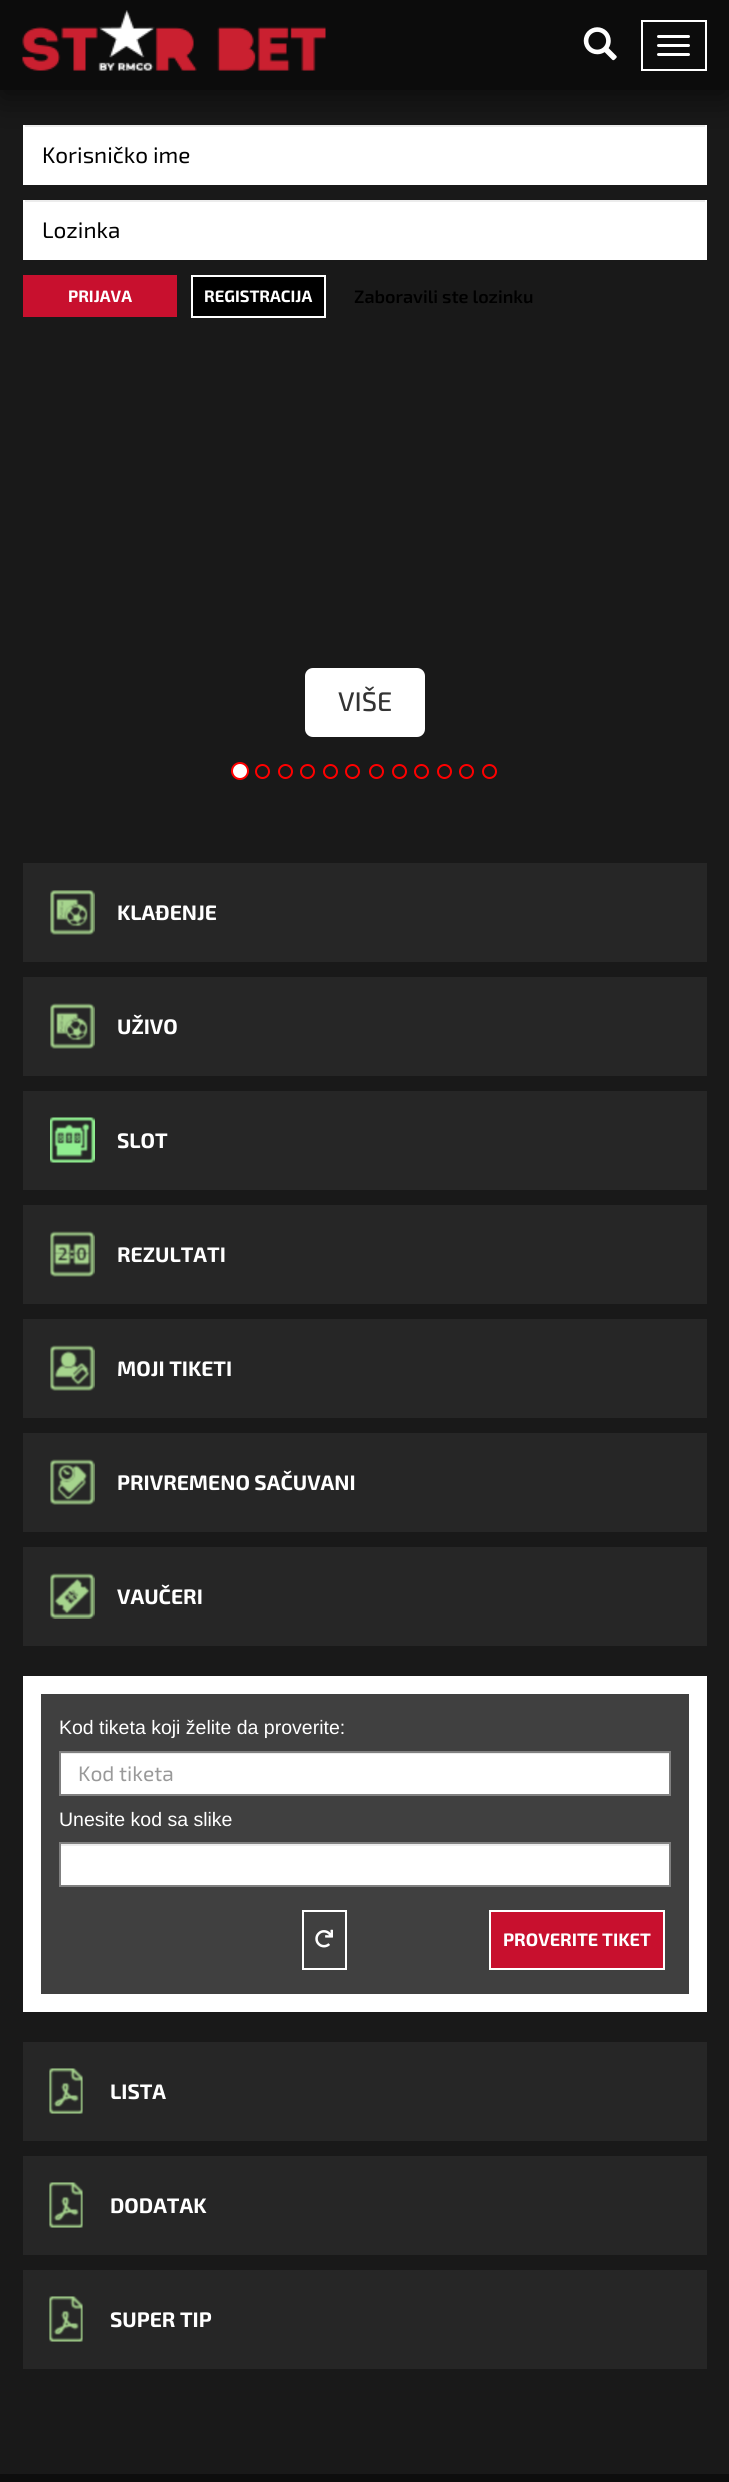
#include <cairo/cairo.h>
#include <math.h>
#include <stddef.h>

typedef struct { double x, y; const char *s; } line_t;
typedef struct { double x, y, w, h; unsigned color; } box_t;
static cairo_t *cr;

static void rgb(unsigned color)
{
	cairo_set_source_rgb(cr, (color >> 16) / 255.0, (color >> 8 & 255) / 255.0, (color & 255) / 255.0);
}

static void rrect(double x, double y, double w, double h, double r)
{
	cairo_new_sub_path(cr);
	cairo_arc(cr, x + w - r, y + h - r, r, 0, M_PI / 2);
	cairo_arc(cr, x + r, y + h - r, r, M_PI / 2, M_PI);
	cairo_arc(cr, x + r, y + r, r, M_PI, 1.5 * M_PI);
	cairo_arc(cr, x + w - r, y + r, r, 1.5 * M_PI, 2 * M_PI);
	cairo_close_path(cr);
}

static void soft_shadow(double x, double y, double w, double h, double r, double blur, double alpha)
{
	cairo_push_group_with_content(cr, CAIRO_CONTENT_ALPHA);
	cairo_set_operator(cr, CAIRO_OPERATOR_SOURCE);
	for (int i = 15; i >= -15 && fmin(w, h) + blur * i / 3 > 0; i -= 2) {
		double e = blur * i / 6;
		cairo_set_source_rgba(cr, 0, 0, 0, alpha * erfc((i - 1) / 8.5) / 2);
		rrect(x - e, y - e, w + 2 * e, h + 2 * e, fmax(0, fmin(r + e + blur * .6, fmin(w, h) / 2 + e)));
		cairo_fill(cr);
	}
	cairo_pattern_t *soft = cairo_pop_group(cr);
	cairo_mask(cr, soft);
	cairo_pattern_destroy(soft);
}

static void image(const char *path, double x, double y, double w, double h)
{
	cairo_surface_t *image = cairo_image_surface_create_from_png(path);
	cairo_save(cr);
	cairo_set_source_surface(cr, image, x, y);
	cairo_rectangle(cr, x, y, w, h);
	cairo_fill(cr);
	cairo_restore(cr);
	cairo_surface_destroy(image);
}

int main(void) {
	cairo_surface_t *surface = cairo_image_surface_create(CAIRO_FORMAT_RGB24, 729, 2482);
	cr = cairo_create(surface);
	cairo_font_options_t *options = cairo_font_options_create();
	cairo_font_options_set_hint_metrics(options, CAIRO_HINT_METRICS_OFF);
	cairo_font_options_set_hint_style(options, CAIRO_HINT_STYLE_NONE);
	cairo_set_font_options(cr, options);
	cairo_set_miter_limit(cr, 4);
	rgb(0x191919);
	cairo_paint(cr);
	rgb(0x000000);
	soft_shadow(0, 8, 729, 90, 0, 17, 0.58);
	rgb(0x0c0c0c);
	cairo_rectangle(cr, 0, 0, 729, 90);
	cairo_fill(cr);
	image("img/1.png", 22, 10, 304, 61);
	image("img/2.png", 583, 27, 34, 34);
	cairo_rectangle(cr, 642, 21, 64, 49);
	rgb(0xffffff);
	cairo_stroke(cr);
	rrect(657, 35, 33, 3, 1.5);
	cairo_fill(cr);
	rrect(657, 44, 33, 3, 1.5);
	cairo_fill(cr);
	rrect(657, 53, 33, 3, 1.5);
	cairo_fill(cr);
	{
		static const box_t items[] = {
			{25, 125, 682, 60, 0xffffff},
			{24, 125, 681, 2, 0xececec},
			{23, 125, 2, 60, 0xffffff},
			{25, 200, 682, 60, 0xffffff},
			{24, 200, 681, 2, 0xececec},
			{23, 200, 2, 60, 0xffffff},
			{23, 275, 154, 42, 0xc8102e},
		};
		for (size_t i = 0; i < sizeof items / sizeof *items; i++) {
			rgb(items[i].color);
			cairo_rectangle(cr, items[i].x, items[i].y, items[i].w, items[i].h);
			cairo_fill(cr);
		}
	}
	rgb(0x000000);
	cairo_rectangle(cr, 192, 276, 133, 41);
	cairo_fill_preserve(cr);
	rgb(0xffffff);
	cairo_stroke(cr);
	rrect(306.5, 669.5, 117, 66, 6.5);
	cairo_fill_preserve(cr);
	cairo_set_line_width(cr, 3);
	cairo_stroke(cr);
	cairo_arc(cr, 240, 771, 8, 0, 2 * M_PI);
	cairo_fill_preserve(cr);
	rgb(0xff0000);
	cairo_set_line_width(cr, 2);
	cairo_stroke(cr);
	cairo_arc(cr, 262.5, 771.5, 6.5, 0, 2 * M_PI);
	cairo_stroke(cr);
	cairo_arc(cr, 285.5, 771.5, 6.5, 0, 2 * M_PI);
	cairo_stroke(cr);
	cairo_arc(cr, 307.5, 771.5, 6.5, 0, 2 * M_PI);
	cairo_stroke(cr);
	cairo_arc(cr, 330.5, 771.5, 6.5, 0, 2 * M_PI);
	cairo_stroke(cr);
	cairo_arc(cr, 352.5, 771.5, 6.5, 0, 2 * M_PI);
	cairo_stroke(cr);
	cairo_arc(cr, 376.5, 771.5, 6.5, 0, 2 * M_PI);
	cairo_stroke(cr);
	cairo_arc(cr, 399.5, 771.5, 6.5, 0, 2 * M_PI);
	cairo_stroke(cr);
	cairo_arc(cr, 421.5, 771.5, 6.5, 0, 2 * M_PI);
	cairo_stroke(cr);
	cairo_arc(cr, 444.5, 771.5, 6.5, 0, 2 * M_PI);
	cairo_stroke(cr);
	cairo_arc(cr, 466.5, 771.5, 6.5, 0, 2 * M_PI);
	cairo_stroke(cr);
	cairo_arc(cr, 489.5, 771.5, 6.5, 0, 2 * M_PI);
	cairo_stroke(cr);
	rgb(0x262626);
	cairo_rectangle(cr, 23, 863, 684, 99);
	cairo_fill(cr);
	image("img/3.png", 50, 890, 45, 45);
	cairo_rectangle(cr, 23, 977, 684, 99);
	cairo_fill(cr);
	image("img/4.png", 50, 1003, 45, 46);
	cairo_rectangle(cr, 23, 1091, 684, 99);
	cairo_fill(cr);
	image("img/5.png", 50, 1117, 45, 46);
	cairo_rectangle(cr, 23, 1205, 684, 99);
	cairo_fill(cr);
	image("img/6.png", 50, 1231, 45, 46);
	cairo_rectangle(cr, 23, 1319, 684, 99);
	cairo_fill(cr);
	image("img/7.png", 50, 1345, 45, 46);
	cairo_rectangle(cr, 23, 1433, 684, 99);
	cairo_fill(cr);
	image("img/8.png", 50, 1459, 45, 46);
	cairo_rectangle(cr, 23, 1547, 684, 99);
	cairo_fill(cr);
	image("img/9.png", 50, 1573, 45, 46);
	{
		static const box_t items[] = {
			{23, 1676, 684, 336, 0xffffff},
			{41, 1694, 648, 300, 0x404040},
			{61, 1754, 608, 40, 0xffffff},
			{60, 1753, 609, 1, 0xececec},
		};
		for (size_t i = 0; i < sizeof items / sizeof *items; i++) {
			rgb(items[i].color);
			cairo_rectangle(cr, items[i].x, items[i].y, items[i].w, items[i].h);
			cairo_fill(cr);
		}
	}
	cairo_rectangle(cr, 60, 1752, 610, 43);
	rgb(0x808080);
	cairo_stroke(cr);
	rgb(0xffffff);
	cairo_rectangle(cr, 61, 1846, 608, 39);
	cairo_fill(cr);
	rgb(0xececec);
	cairo_rectangle(cr, 60, 1844, 609, 2);
	cairo_fill(cr);
	cairo_rectangle(cr, 60, 1843, 610, 43);
	rgb(0x808080);
	cairo_stroke(cr);
	cairo_rectangle(cr, 303, 1911, 43, 58);
	rgb(0xffffff);
	cairo_stroke(cr);
	image("img/10.png", 315, 1929, 18, 19);
	rgb(0xc8102e);
	cairo_rectangle(cr, 490, 1911, 174, 58);
	cairo_fill_preserve(cr);
	rgb(0xffffff);
	cairo_stroke(cr);
	rgb(0x262626);
	cairo_rectangle(cr, 23, 2042, 684, 99);
	cairo_fill(cr);
	image("img/11.png", 49, 2068, 34, 46);
	cairo_rectangle(cr, 23, 2156, 684, 99);
	cairo_fill(cr);
	image("img/12.png", 49, 2182, 34, 46);
	cairo_rectangle(cr, 23, 2270, 684, 99);
	cairo_fill(cr);
	image("img/13.png", 49, 2296, 34, 46);
	rgb(0x0d0d0d);
	cairo_rectangle(cr, 0, 2474, 729, 8);
	cairo_fill(cr);
	cairo_select_font_face(cr, "Exo 2", CAIRO_FONT_SLANT_NORMAL, CAIRO_FONT_WEIGHT_NORMAL);
	cairo_set_font_size(cr, 22.5);
	rgb(0x000000);
	cairo_move_to(cr, 42, 163);
	cairo_show_text(cr, "Korisničko ime");
	cairo_move_to(cr, 42, 238);
	cairo_show_text(cr, "Lozinka");
	cairo_select_font_face(cr, "Exo 2", CAIRO_FONT_SLANT_NORMAL, CAIRO_FONT_WEIGHT_BOLD);
	cairo_set_font_size(cr, 16.5);
	rgb(0xffffff);
	cairo_move_to(cr, 68, 302);
	cairo_show_text(cr, "PRIJAVA");
	cairo_move_to(cr, 204, 302);
	cairo_show_text(cr, "REGISTRACIJA");
	cairo_select_font_face(cr, "Exo 2 SemiBold", CAIRO_FONT_SLANT_NORMAL, CAIRO_FONT_WEIGHT_NORMAL);
	cairo_set_font_size(cr, 18);
	rgb(0x000000);
	cairo_move_to(cr, 354, 303);
	cairo_show_text(cr, "Zaboravili ste lozinku");
	cairo_select_font_face(cr, "Exo 2 Medium", CAIRO_FONT_SLANT_NORMAL, CAIRO_FONT_WEIGHT_NORMAL);
	cairo_set_font_size(cr, 27);
	rgb(0x333333);
	cairo_move_to(cr, 338, 711);
	cairo_show_text(cr, "VIŠE");
	cairo_select_font_face(cr, "Exo 2", CAIRO_FONT_SLANT_NORMAL, CAIRO_FONT_WEIGHT_BOLD);
	cairo_set_font_size(cr, 21);
	rgb(0xffffff);
	{
		static const line_t items[] = {
			{117, 920, "KLAĐENJE"},
			{117, 1034, "UŽIVO"},
			{117, 1148, "SLOT"},
			{117, 1262, "REZULTATI"},
			{117, 1376, "MOJI TIKETI"},
			{117, 1490, "PRIVREMENO SAČUVANI"},
			{117, 1604, "VAUČERI"},
		};
		for (size_t i = 0; i < sizeof items / sizeof *items; i++) {
			cairo_move_to(cr, items[i].x, items[i].y);
			cairo_show_text(cr, items[i].s);
		}
	}
	cairo_select_font_face(cr, "Liberation Sans", CAIRO_FONT_SLANT_NORMAL, CAIRO_FONT_WEIGHT_NORMAL);
	cairo_set_font_size(cr, 19.5);
	cairo_move_to(cr, 59, 1734);
	cairo_show_text(cr, "Kod tiketa koji želite da proverite:");
	cairo_select_font_face(cr, "Exo 2", CAIRO_FONT_SLANT_NORMAL, CAIRO_FONT_WEIGHT_NORMAL);
	cairo_set_font_size(cr, 21);
	rgb(0x999999);
	cairo_move_to(cr, 78, 1781);
	cairo_show_text(cr, "Kod tiketa");
	cairo_select_font_face(cr, "Liberation Sans", CAIRO_FONT_SLANT_NORMAL, CAIRO_FONT_WEIGHT_NORMAL);
	cairo_set_font_size(cr, 19.5);
	rgb(0xffffff);
	cairo_move_to(cr, 59, 1826);
	cairo_show_text(cr, "Unesite kod sa slike");
	cairo_select_font_face(cr, "Exo 2", CAIRO_FONT_SLANT_NORMAL, CAIRO_FONT_WEIGHT_BOLD);
	cairo_set_font_size(cr, 18);
	cairo_move_to(cr, 503, 1946);
	cairo_show_text(cr, "PROVERITE TIKET");
	cairo_set_font_size(cr, 21);
	{
		static const line_t items[] = {
			{110, 2099, "LISTA"},
			{110, 2213, "DODATAK"},
			{110, 2327, "SUPER TIP"},
		};
		for (size_t i = 0; i < sizeof items / sizeof *items; i++) {
			cairo_move_to(cr, items[i].x, items[i].y);
			cairo_show_text(cr, items[i].s);
		}
	}
	cairo_surface_write_to_png(surface, "page.png");
	cairo_font_options_destroy(options);
	cairo_destroy(cr);
	cairo_surface_destroy(surface);
	return 0;
}
